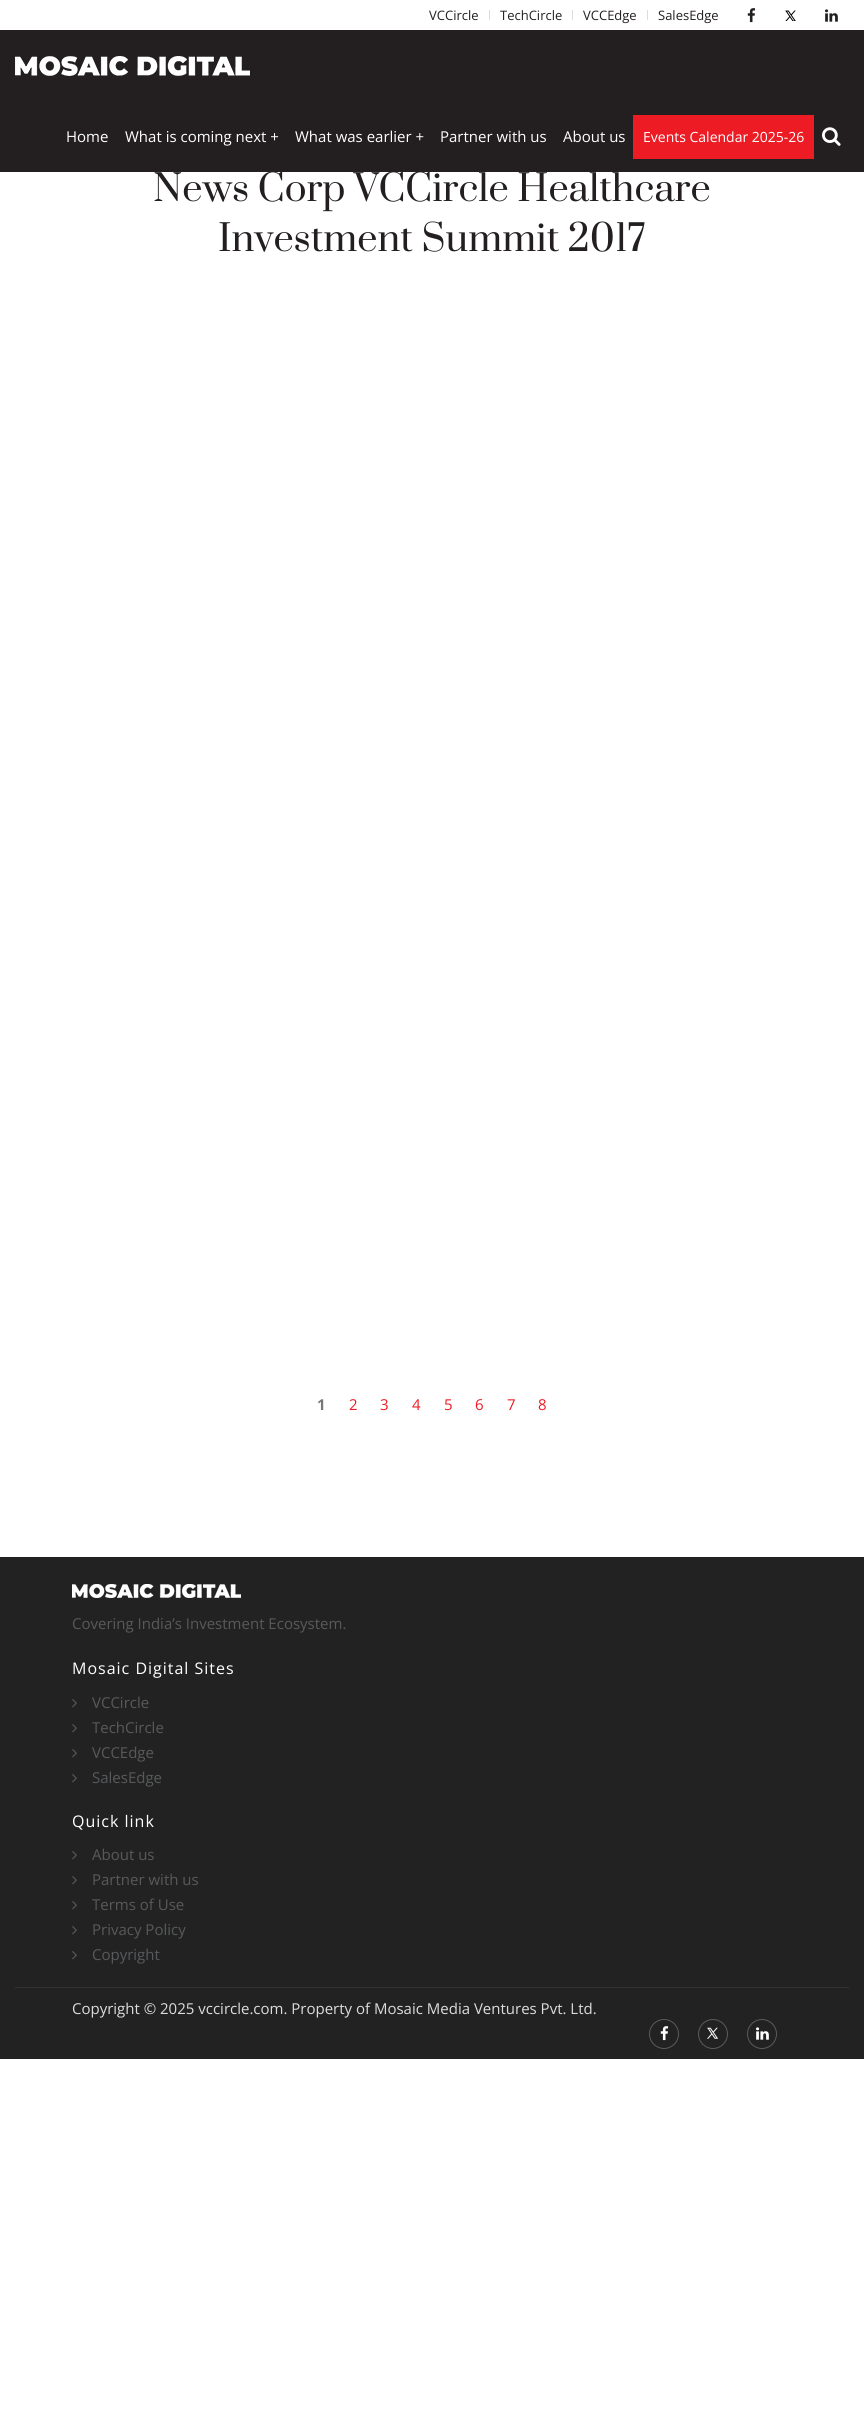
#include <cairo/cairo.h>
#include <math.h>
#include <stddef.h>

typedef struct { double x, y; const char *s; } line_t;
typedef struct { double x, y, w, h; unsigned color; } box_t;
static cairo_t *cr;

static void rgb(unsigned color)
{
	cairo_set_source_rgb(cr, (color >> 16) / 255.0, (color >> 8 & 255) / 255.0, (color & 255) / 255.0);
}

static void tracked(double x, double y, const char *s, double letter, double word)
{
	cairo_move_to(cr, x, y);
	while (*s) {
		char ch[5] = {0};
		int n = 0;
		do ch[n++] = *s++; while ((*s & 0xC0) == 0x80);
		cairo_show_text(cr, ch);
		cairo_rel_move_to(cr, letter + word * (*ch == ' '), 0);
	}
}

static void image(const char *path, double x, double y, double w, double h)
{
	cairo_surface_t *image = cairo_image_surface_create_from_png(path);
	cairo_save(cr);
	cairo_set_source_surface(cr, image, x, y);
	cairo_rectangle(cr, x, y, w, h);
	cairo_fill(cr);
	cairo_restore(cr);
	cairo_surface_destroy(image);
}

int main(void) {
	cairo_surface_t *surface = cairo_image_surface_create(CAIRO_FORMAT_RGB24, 864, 2421);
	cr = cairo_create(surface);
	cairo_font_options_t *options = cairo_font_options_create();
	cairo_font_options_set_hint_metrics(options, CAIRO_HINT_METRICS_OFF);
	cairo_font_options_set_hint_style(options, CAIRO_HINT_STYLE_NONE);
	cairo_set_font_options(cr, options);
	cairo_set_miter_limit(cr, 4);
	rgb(0xffffff);
	cairo_paint(cr);
	{
		static const box_t items[] = {
			{489, 10, 1, 10, 0xdddddd},
			{572, 10, 1, 10, 0xdddddd},
			{647, 10, 1, 10, 0xdddddd},
		};
		for (size_t i = 0; i < sizeof items / sizeof *items; i++) {
			rgb(items[i].color);
			cairo_rectangle(cr, items[i].x, items[i].y, items[i].w, items[i].h);
			cairo_fill(cr);
		}
	}
	image("img/1.png", 747, 8, 9, 15);
	image("img/2.png", 785, 10, 11, 11);
	image("img/3.png", 825, 9, 13, 13);
	rgb(0x231f20);
	cairo_rectangle(cr, 0, 30, 864, 142);
	cairo_fill(cr);
	image("img/4.png", 15, 56, 235, 20);
	rgb(0xed1c24);
	cairo_rectangle(cr, 633, 115, 181, 44);
	cairo_fill(cr);
	image("img/5.png", 822, 127, 19, 19);
	rgb(0x222222);
	cairo_rectangle(cr, 0, 1557, 864, 502);
	cairo_fill(cr);
	image("img/6.png", 72, 1584, 169, 14);
	image("img/7.png", 72, 1699, 5, 9);
	image("img/7.png", 72, 1724, 5, 9);
	image("img/7.png", 72, 1749, 5, 9);
	image("img/7.png", 72, 1774, 5, 9);
	image("img/7.png", 72, 1851, 5, 9);
	image("img/7.png", 72, 1876, 5, 9);
	image("img/7.png", 72, 1901, 5, 9);
	image("img/7.png", 72, 1926, 5, 9);
	image("img/7.png", 72, 1951, 5, 9);
	rgb(0x333333);
	cairo_rectangle(cr, 15, 1987, 834, 1);
	cairo_fill(cr);
	cairo_arc(cr, 664, 2034, 14.5, 0, 2 * M_PI);
	rgb(0x5a5a5a);
	cairo_set_line_width(cr, 1);
	cairo_stroke(cr);
	image("img/8.png", 660, 2026, 9, 15);
	cairo_arc(cr, 713, 2034, 14.5, 0, 2 * M_PI);
	cairo_stroke(cr);
	image("img/9.png", 707, 2027, 12, 12);
	cairo_arc(cr, 762, 2034, 14.5, 0, 2 * M_PI);
	cairo_stroke(cr);
	image("img/10.png", 756, 2027, 13, 13);
	cairo_select_font_face(cr, "Open Sans", CAIRO_FONT_SLANT_NORMAL, CAIRO_FONT_WEIGHT_NORMAL);
	cairo_set_font_size(cr, 13);
	rgb(0x231f20);
	{
		static const line_t items[] = {
			{429, 20, "VCCircle"},
			{500, 20, "TechCircle"},
			{583, 20, "VCCEdge"},
			{658, 20, "SalesEdge"},
		};
		for (size_t i = 0; i < sizeof items / sizeof *items; i++) {
			cairo_move_to(cr, items[i].x, items[i].y);
			cairo_show_text(cr, items[i].s);
		}
	}
	cairo_set_font_size(cr, 15);
	rgb(0xffffff);
	{
		static const line_t items[] = {
			{66, 142, "Home"},
			{125, 142, "What is coming next +"},
			{295, 142, "What was earlier +"},
			{440, 142, "Partner with us"},
			{563, 142, "About us"},
		};
		for (size_t i = 0; i < sizeof items / sizeof *items; i++) {
			cairo_move_to(cr, items[i].x, items[i].y);
			cairo_show_text(cr, items[i].s);
		}
	}
	cairo_set_font_size(cr, 14);
	cairo_move_to(cr, 643, 142);
	cairo_show_text(cr, "Events Calendar 2025-26");
	cairo_select_font_face(cr, "Prata", CAIRO_FONT_SLANT_NORMAL, CAIRO_FONT_WEIGHT_NORMAL);
	cairo_set_font_size(cr, 36);
	rgb(0x231f20);
	cairo_move_to(cr, 153, 201);
	cairo_show_text(cr, "News Corp VCCircle Healthcare");
	cairo_move_to(cr, 218, 251);
	cairo_show_text(cr, "Investment Summit 2017");
	cairo_select_font_face(cr, "Open Sans", CAIRO_FONT_SLANT_NORMAL, CAIRO_FONT_WEIGHT_BOLD);
	cairo_set_font_size(cr, 15);
	rgb(0x777777);
	cairo_move_to(cr, 317, 1410);
	cairo_show_text(cr, "1");
	cairo_select_font_face(cr, "Open Sans", CAIRO_FONT_SLANT_NORMAL, CAIRO_FONT_WEIGHT_NORMAL);
	rgb(0xed1c24);
	{
		static const line_t items[] = {
			{349, 1410, "2"},
			{380, 1410, "3"},
			{412, 1410, "4"},
			{444, 1410, "5"},
			{475, 1410, "6"},
			{507, 1410, "7"},
			{538, 1410, "8"},
		};
		for (size_t i = 0; i < sizeof items / sizeof *items; i++) {
			cairo_move_to(cr, items[i].x, items[i].y);
			cairo_show_text(cr, items[i].s);
		}
	}
	rgb(0x58595b);
	cairo_move_to(cr, 72, 1629);
	cairo_show_text(cr, "Covering India’s Investment Ecosystem.");
	cairo_set_font_size(cr, 16);
	rgb(0xffffff);
	tracked(72, 1674, "Mosaic Digital Sites", 1, 0);
	cairo_set_font_size(cr, 15);
	rgb(0x58595b);
	{
		static const line_t items[] = {
			{92, 1708, "VCCircle"},
			{92, 1733, "TechCircle"},
			{92, 1758, "VCCEdge"},
			{92, 1783, "SalesEdge"},
		};
		for (size_t i = 0; i < sizeof items / sizeof *items; i++) {
			cairo_move_to(cr, items[i].x, items[i].y);
			cairo_show_text(cr, items[i].s);
		}
	}
	cairo_set_font_size(cr, 16);
	rgb(0xffffff);
	tracked(72, 1827, "Quick link", 1, 0);
	cairo_set_font_size(cr, 15);
	rgb(0x58595b);
	{
		static const line_t items[] = {
			{92, 1860, "About us"},
			{92, 1885, "Partner with us"},
			{92, 1910, "Terms of Use"},
			{92, 1935, "Privacy Policy"},
			{92, 1960, "Copyright"},
		};
		for (size_t i = 0; i < sizeof items / sizeof *items; i++) {
			cairo_move_to(cr, items[i].x, items[i].y);
			cairo_show_text(cr, items[i].s);
		}
	}
	rgb(0xdddddd);
	cairo_move_to(cr, 72, 2014);
	cairo_show_text(cr, "Copyright © 2025 vccircle.com. Property of Mosaic Media Ventures Pvt. Ltd.");
	cairo_surface_write_to_png(surface, "page.png");
	cairo_font_options_destroy(options);
	cairo_destroy(cr);
	cairo_surface_destroy(surface);
	return 0;
}
